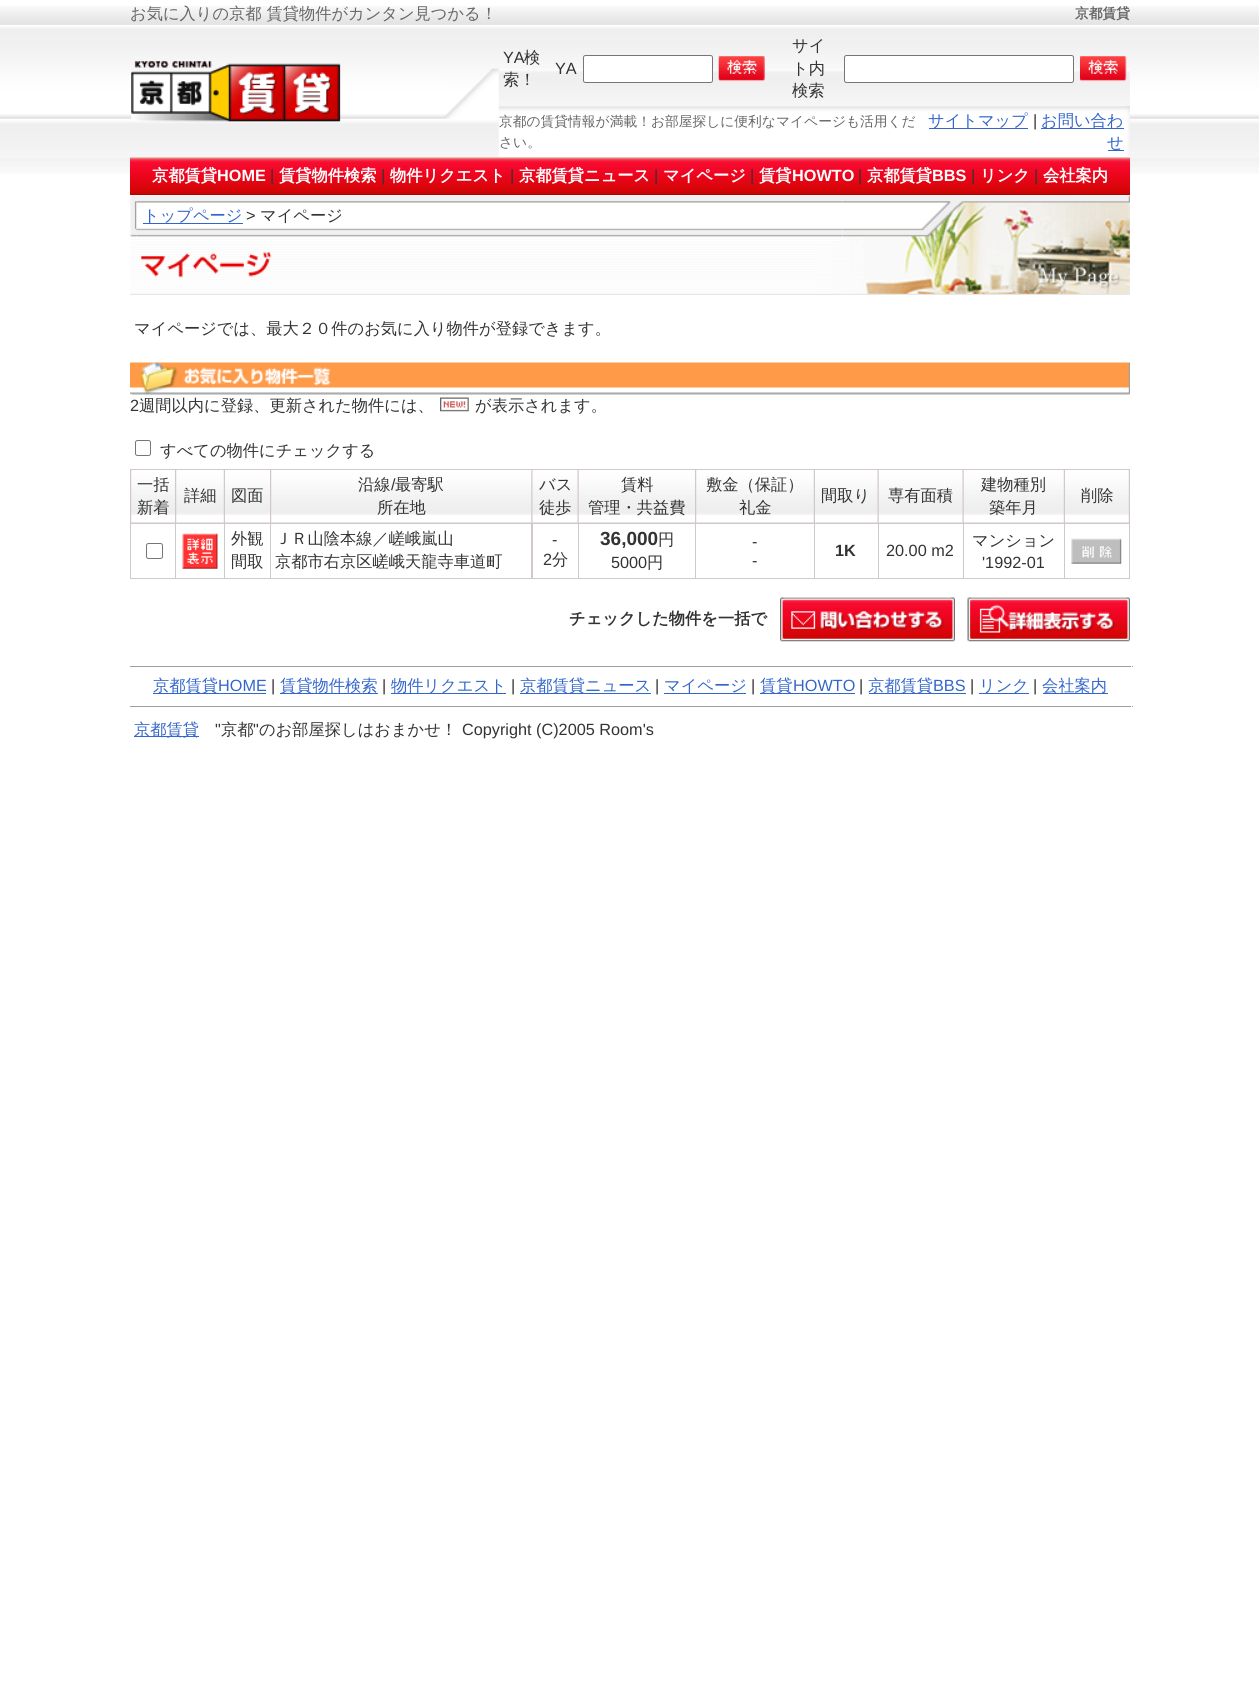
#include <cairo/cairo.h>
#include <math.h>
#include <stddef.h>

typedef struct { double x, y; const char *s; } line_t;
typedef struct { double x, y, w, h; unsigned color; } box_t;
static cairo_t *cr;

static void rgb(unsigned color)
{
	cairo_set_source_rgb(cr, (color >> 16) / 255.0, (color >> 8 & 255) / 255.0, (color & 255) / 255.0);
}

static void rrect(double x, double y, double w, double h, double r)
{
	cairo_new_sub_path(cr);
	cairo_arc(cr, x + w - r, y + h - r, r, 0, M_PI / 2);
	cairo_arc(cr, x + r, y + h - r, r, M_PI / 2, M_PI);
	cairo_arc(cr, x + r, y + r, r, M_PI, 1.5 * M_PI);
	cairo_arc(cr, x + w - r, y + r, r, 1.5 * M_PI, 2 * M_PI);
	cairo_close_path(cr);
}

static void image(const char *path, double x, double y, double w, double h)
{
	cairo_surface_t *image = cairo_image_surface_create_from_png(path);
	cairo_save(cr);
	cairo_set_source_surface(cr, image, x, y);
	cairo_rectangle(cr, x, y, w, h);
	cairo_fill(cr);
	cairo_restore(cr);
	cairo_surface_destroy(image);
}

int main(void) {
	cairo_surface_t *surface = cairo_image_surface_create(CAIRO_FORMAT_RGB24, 1259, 1690);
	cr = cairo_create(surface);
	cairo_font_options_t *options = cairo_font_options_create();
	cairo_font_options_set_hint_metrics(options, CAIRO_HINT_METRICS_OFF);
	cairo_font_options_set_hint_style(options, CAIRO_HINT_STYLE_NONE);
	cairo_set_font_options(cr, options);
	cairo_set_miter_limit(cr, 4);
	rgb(0xffffff);
	cairo_paint(cr);
	image("img/1.png", 0, 6, 1259, 19);
	image("img/2.png", 0, 26, 1259, 132);
	image("img/3.png", 444, 68, 55, 51);
	image("img/4.png", 131, 61, 210, 61);
	image("img/5.png", 498, 69, 632, 37);
	rgb(0xffffff);
	rrect(583.5, 55.5, 129, 27, 2);
	cairo_fill_preserve(cr);
	rgb(0x767676);
	cairo_set_line_width(cr, 1);
	cairo_stroke(cr);
	image("img/6.png", 718, 56, 47, 26);
	rgb(0xffffff);
	rrect(844.5, 55.5, 229, 27, 2);
	cairo_fill_preserve(cr);
	rgb(0x767676);
	cairo_stroke(cr);
	image("img/7.png", 1080, 56, 47, 26);
	image("img/8.png", 498, 106, 632, 51);
	{
		static const box_t items[] = {
			{929, 128, 99, 1, 0x3366cc},
			{1041, 128, 83, 1, 0x3366cc},
			{1108, 150, 16, 1, 0x3366cc},
		};
		for (size_t i = 0; i < sizeof items / sizeof *items; i++) {
			rgb(items[i].color);
			cairo_rectangle(cr, items[i].x, items[i].y, items[i].w, items[i].h);
			cairo_fill(cr);
		}
	}
	image("img/9.png", 1124, 106, 6, 50);
	image("img/10.png", 0, 157, 1259, 17);
	image("img/11.png", 130, 157, 1000, 38);
	image("img/12.png", 130, 195, 7, 45);
	image("img/13.png", 136, 195, 707, 8);
	image("img/14.png", 842, 195, 288, 100);
	cairo_rectangle(cr, 143, 223, 100, 1);
	cairo_fill(cr);
	image("img/15.png", 136, 228, 707, 12);
	image("img/16.png", 130, 241, 713, 54);
	image("img/17.png", 130, 362, 1000, 33);
	image("img/18.png", 440, 397, 29, 15);
	rrect(135.5, 440.5, 15, 15, 2);
	rgb(0x767676);
	cairo_stroke(cr);
	rgb(0xd1c9c9);
	cairo_rectangle(cr, 130, 469, 1000, 110);
	cairo_fill(cr);
	image("img/19.png", 131, 470, 44, 53);
	image("img/20.png", 176, 470, 48, 53);
	image("img/21.png", 225, 470, 45, 53);
	image("img/22.png", 271, 470, 261, 53);
	image("img/23.png", 532, 470, 46, 53);
	image("img/24.png", 578, 470, 117, 53);
	image("img/25.png", 696, 470, 118, 53);
	image("img/26.png", 815, 470, 63, 53);
	image("img/27.png", 878, 470, 85, 53);
	image("img/28.png", 963, 470, 101, 53);
	image("img/29.png", 1065, 470, 64, 53);
	rgb(0xffffff);
	cairo_rectangle(cr, 131, 524, 44, 54);
	cairo_fill(cr);
	rrect(146.5, 543.5, 16, 15, 2);
	rgb(0x767676);
	cairo_stroke(cr);
	rgb(0xffffff);
	cairo_rectangle(cr, 176, 524, 48, 54);
	cairo_fill(cr);
	image("img/30.png", 182, 533, 36, 36);
	{
		static const box_t items[] = {
			{225, 524, 45, 54, 0xffffff},
			{271, 524, 260, 54, 0xffffff},
			{533, 524, 45, 54, 0xffffff},
			{579, 524, 116, 54, 0xffffff},
			{696, 524, 118, 54, 0xffffff},
			{815, 524, 63, 54, 0xffffff},
			{879, 524, 84, 54, 0xffffff},
			{964, 524, 100, 54, 0xffffff},
			{1065, 524, 64, 54, 0xffffff},
		};
		for (size_t i = 0; i < sizeof items / sizeof *items; i++) {
			rgb(items[i].color);
			cairo_rectangle(cr, items[i].x, items[i].y, items[i].w, items[i].h);
			cairo_fill(cr);
		}
	}
	image("img/31.png", 1071, 538, 51, 26);
	image("img/32.png", 780, 597, 175, 45);
	image("img/33.png", 967, 597, 163, 45);
	{
		static const box_t items[] = {
			{130, 666, 1003, 1, 0x9f9f9f},
			{1131, 666, 1, 1, 0xeeeeee},
			{153, 693, 113, 1, 0x3366cc},
			{280, 693, 98, 1, 0x3366cc},
			{391, 693, 115, 1, 0x3366cc},
			{520, 693, 131, 1, 0x3366cc},
			{664, 693, 82, 1, 0x3366cc},
			{760, 693, 95, 1, 0x3366cc},
			{869, 693, 97, 1, 0x3366cc},
			{979, 693, 50, 1, 0x3366cc},
			{1043, 693, 65, 1, 0x3366cc},
			{130, 706, 1003, 1, 0x9f9f9f},
			{1131, 706, 1, 1, 0xeeeeee},
			{134, 736, 65, 1, 0x3366cc},
		};
		for (size_t i = 0; i < sizeof items / sizeof *items; i++) {
			rgb(items[i].color);
			cairo_rectangle(cr, items[i].x, items[i].y, items[i].w, items[i].h);
			cairo_fill(cr);
		}
	}
	cairo_select_font_face(cr, "WenQuanYi Zen Hei Medium", CAIRO_FONT_SLANT_NORMAL, CAIRO_FONT_WEIGHT_NORMAL);
	cairo_set_font_size(cr, 16.25);
	rgb(0x666666);
	cairo_move_to(cr, 130, 19);
	cairo_show_text(cr, "お気に入りの京都 賃貸物件がカンタン見つかる！");
	cairo_select_font_face(cr, "WenQuanYi Zen Hei", CAIRO_FONT_SLANT_NORMAL, CAIRO_FONT_WEIGHT_BOLD);
	cairo_set_font_size(cr, 13.75);
	cairo_move_to(cr, 1075, 18);
	cairo_show_text(cr, "京都賃貸");
	cairo_select_font_face(cr, "Liberation Sans", CAIRO_FONT_SLANT_NORMAL, CAIRO_FONT_WEIGHT_NORMAL);
	cairo_set_font_size(cr, 16.25);
	rgb(0x333333);
	cairo_move_to(cr, 503, 63);
	cairo_show_text(cr, "YA");
	cairo_select_font_face(cr, "WenQuanYi Zen Hei Medium", CAIRO_FONT_SLANT_NORMAL, CAIRO_FONT_WEIGHT_NORMAL);
	cairo_move_to(cr, 524, 63);
	cairo_show_text(cr, "検");
	cairo_move_to(cr, 503, 85);
	cairo_show_text(cr, "索！");
	cairo_select_font_face(cr, "Liberation Sans", CAIRO_FONT_SLANT_NORMAL, CAIRO_FONT_WEIGHT_NORMAL);
	cairo_move_to(cr, 555, 74);
	cairo_show_text(cr, "YA");
	cairo_select_font_face(cr, "WenQuanYi Zen Hei Medium", CAIRO_FONT_SLANT_NORMAL, CAIRO_FONT_WEIGHT_NORMAL);
	{
		static const line_t items[] = {
			{792, 51, "サイ"},
			{792, 74, "ト内"},
			{792, 96, "検索"},
		};
		for (size_t i = 0; i < sizeof items / sizeof *items; i++) {
			cairo_move_to(cr, items[i].x, items[i].y);
			cairo_show_text(cr, items[i].s);
		}
	}
	cairo_set_font_size(cr, 13.75);
	rgb(0x666666);
	cairo_move_to(cr, 499, 126);
	cairo_show_text(cr, "京都の賃貸情報が満載！お部屋探しに便利なマイページも活用くだ");
	cairo_move_to(cr, 499, 147);
	cairo_show_text(cr, "さい。");
	cairo_set_font_size(cr, 16.25);
	rgb(0x3366cc);
	cairo_move_to(cr, 928, 126);
	cairo_show_text(cr, "サイトマップ");
	cairo_select_font_face(cr, "Liberation Sans", CAIRO_FONT_SLANT_NORMAL, CAIRO_FONT_WEIGHT_NORMAL);
	rgb(0x333333);
	cairo_move_to(cr, 1033, 126);
	cairo_show_text(cr, "|");
	cairo_select_font_face(cr, "WenQuanYi Zen Hei Medium", CAIRO_FONT_SLANT_NORMAL, CAIRO_FONT_WEIGHT_NORMAL);
	rgb(0x3366cc);
	cairo_move_to(cr, 1041, 126);
	cairo_show_text(cr, "お問い合わ");
	cairo_move_to(cr, 1107, 148);
	cairo_show_text(cr, "せ");
	cairo_select_font_face(cr, "WenQuanYi Zen Hei", CAIRO_FONT_SLANT_NORMAL, CAIRO_FONT_WEIGHT_BOLD);
	rgb(0xffffff);
	cairo_move_to(cr, 152, 181);
	cairo_show_text(cr, "京都賃貸");
	cairo_select_font_face(cr, "Liberation Sans", CAIRO_FONT_SLANT_NORMAL, CAIRO_FONT_WEIGHT_BOLD);
	cairo_move_to(cr, 217, 181);
	cairo_show_text(cr, "HOME");
	cairo_select_font_face(cr, "Liberation Sans", CAIRO_FONT_SLANT_NORMAL, CAIRO_FONT_WEIGHT_NORMAL);
	rgb(0x333333);
	cairo_move_to(cr, 270, 181);
	cairo_show_text(cr, "|");
	cairo_select_font_face(cr, "WenQuanYi Zen Hei", CAIRO_FONT_SLANT_NORMAL, CAIRO_FONT_WEIGHT_BOLD);
	rgb(0xffffff);
	cairo_move_to(cr, 279, 181);
	cairo_show_text(cr, "賃貸物件検索");
	cairo_select_font_face(cr, "Liberation Sans", CAIRO_FONT_SLANT_NORMAL, CAIRO_FONT_WEIGHT_NORMAL);
	rgb(0x333333);
	cairo_move_to(cr, 381, 181);
	cairo_show_text(cr, "|");
	cairo_select_font_face(cr, "WenQuanYi Zen Hei", CAIRO_FONT_SLANT_NORMAL, CAIRO_FONT_WEIGHT_BOLD);
	rgb(0xffffff);
	cairo_move_to(cr, 390, 181);
	cairo_show_text(cr, "物件リクエスト");
	cairo_select_font_face(cr, "Liberation Sans", CAIRO_FONT_SLANT_NORMAL, CAIRO_FONT_WEIGHT_NORMAL);
	rgb(0x333333);
	cairo_move_to(cr, 510, 181);
	cairo_show_text(cr, "|");
	cairo_select_font_face(cr, "WenQuanYi Zen Hei", CAIRO_FONT_SLANT_NORMAL, CAIRO_FONT_WEIGHT_BOLD);
	rgb(0xffffff);
	cairo_move_to(cr, 519, 181);
	cairo_show_text(cr, "京都賃貸ニュース");
	cairo_select_font_face(cr, "Liberation Sans", CAIRO_FONT_SLANT_NORMAL, CAIRO_FONT_WEIGHT_NORMAL);
	rgb(0x333333);
	cairo_move_to(cr, 654, 181);
	cairo_show_text(cr, "|");
	cairo_select_font_face(cr, "WenQuanYi Zen Hei", CAIRO_FONT_SLANT_NORMAL, CAIRO_FONT_WEIGHT_BOLD);
	rgb(0xffffff);
	cairo_move_to(cr, 663, 181);
	cairo_show_text(cr, "マイページ");
	cairo_select_font_face(cr, "Liberation Sans", CAIRO_FONT_SLANT_NORMAL, CAIRO_FONT_WEIGHT_NORMAL);
	rgb(0x333333);
	cairo_move_to(cr, 750, 181);
	cairo_show_text(cr, "|");
	cairo_select_font_face(cr, "WenQuanYi Zen Hei", CAIRO_FONT_SLANT_NORMAL, CAIRO_FONT_WEIGHT_BOLD);
	rgb(0xffffff);
	cairo_move_to(cr, 759, 181);
	cairo_show_text(cr, "賃貸");
	cairo_select_font_face(cr, "Liberation Sans", CAIRO_FONT_SLANT_NORMAL, CAIRO_FONT_WEIGHT_BOLD);
	cairo_move_to(cr, 792, 181);
	cairo_show_text(cr, "HOWTO");
	cairo_select_font_face(cr, "Liberation Sans", CAIRO_FONT_SLANT_NORMAL, CAIRO_FONT_WEIGHT_NORMAL);
	rgb(0x333333);
	cairo_move_to(cr, 858, 181);
	cairo_show_text(cr, "|");
	cairo_select_font_face(cr, "WenQuanYi Zen Hei", CAIRO_FONT_SLANT_NORMAL, CAIRO_FONT_WEIGHT_BOLD);
	rgb(0xffffff);
	cairo_move_to(cr, 867, 181);
	cairo_show_text(cr, "京都賃貸");
	cairo_select_font_face(cr, "Liberation Sans", CAIRO_FONT_SLANT_NORMAL, CAIRO_FONT_WEIGHT_BOLD);
	cairo_move_to(cr, 932, 181);
	cairo_show_text(cr, "BBS");
	cairo_select_font_face(cr, "Liberation Sans", CAIRO_FONT_SLANT_NORMAL, CAIRO_FONT_WEIGHT_NORMAL);
	rgb(0x333333);
	cairo_move_to(cr, 971, 181);
	cairo_show_text(cr, "|");
	cairo_select_font_face(cr, "WenQuanYi Zen Hei", CAIRO_FONT_SLANT_NORMAL, CAIRO_FONT_WEIGHT_BOLD);
	rgb(0xffffff);
	cairo_move_to(cr, 980, 181);
	cairo_show_text(cr, "リンク");
	cairo_select_font_face(cr, "Liberation Sans", CAIRO_FONT_SLANT_NORMAL, CAIRO_FONT_WEIGHT_NORMAL);
	rgb(0x333333);
	cairo_move_to(cr, 1034, 181);
	cairo_show_text(cr, "|");
	cairo_select_font_face(cr, "WenQuanYi Zen Hei", CAIRO_FONT_SLANT_NORMAL, CAIRO_FONT_WEIGHT_BOLD);
	rgb(0xffffff);
	cairo_move_to(cr, 1043, 181);
	cairo_show_text(cr, "会社案内");
	cairo_select_font_face(cr, "WenQuanYi Zen Hei Medium", CAIRO_FONT_SLANT_NORMAL, CAIRO_FONT_WEIGHT_NORMAL);
	rgb(0x3366cc);
	cairo_move_to(cr, 143, 221);
	cairo_show_text(cr, "トップページ");
	cairo_select_font_face(cr, "Liberation Sans", CAIRO_FONT_SLANT_NORMAL, CAIRO_FONT_WEIGHT_NORMAL);
	rgb(0x333333);
	cairo_move_to(cr, 246, 221);
	cairo_show_text(cr, ">");
	cairo_select_font_face(cr, "WenQuanYi Zen Hei Medium", CAIRO_FONT_SLANT_NORMAL, CAIRO_FONT_WEIGHT_NORMAL);
	cairo_move_to(cr, 260, 221);
	cairo_show_text(cr, "マイページ");
	cairo_move_to(cr, 134, 334);
	cairo_show_text(cr, "マイページでは、最大２０件のお気に入り物件が登録できます。");
	cairo_select_font_face(cr, "Liberation Sans", CAIRO_FONT_SLANT_NORMAL, CAIRO_FONT_WEIGHT_NORMAL);
	cairo_move_to(cr, 130, 411);
	cairo_show_text(cr, "2");
	cairo_select_font_face(cr, "WenQuanYi Zen Hei Medium", CAIRO_FONT_SLANT_NORMAL, CAIRO_FONT_WEIGHT_NORMAL);
	{
		static const line_t items[] = {
			{139, 411, "週間以内に登録、更新された物件には、"},
			{475, 411, "が表示されます。"},
			{160, 456, "すべての物件にチェックする"},
			{137, 490, "一括"},
			{137, 513, "新着"},
			{184, 501, "詳細"},
			{231, 501, "図面"},
			{358, 490, "沿線"},
		};
		for (size_t i = 0; i < sizeof items / sizeof *items; i++) {
			cairo_move_to(cr, items[i].x, items[i].y);
			cairo_show_text(cr, items[i].s);
		}
	}
	cairo_select_font_face(cr, "Liberation Sans", CAIRO_FONT_SLANT_NORMAL, CAIRO_FONT_WEIGHT_NORMAL);
	cairo_move_to(cr, 391, 490);
	cairo_show_text(cr, "/");
	cairo_select_font_face(cr, "WenQuanYi Zen Hei Medium", CAIRO_FONT_SLANT_NORMAL, CAIRO_FONT_WEIGHT_NORMAL);
	{
		static const line_t items[] = {
			{395, 490, "最寄駅"},
			{377, 513, "所在地"},
			{539, 490, "バス"},
			{539, 513, "徒歩"},
			{621, 490, "賃料"},
			{588, 513, "管理・共益費"},
			{706, 490, "敷金（保証）"},
			{739, 513, "礼金"},
			{821, 501, "間取り"},
			{888, 501, "専有面積"},
			{981, 490, "建物種別"},
			{989, 513, "築年月"},
			{1081, 501, "削除"},
			{231, 544, "外観"},
			{231, 567, "間取"},
			{275, 544, "ＪＲ山陰本線／嵯峨嵐山"},
			{275, 567, "京都市右京区嵯峨天龍寺車道町"},
		};
		for (size_t i = 0; i < sizeof items / sizeof *items; i++) {
			cairo_move_to(cr, items[i].x, items[i].y);
			cairo_show_text(cr, items[i].s);
		}
	}
	cairo_select_font_face(cr, "Liberation Sans", CAIRO_FONT_SLANT_NORMAL, CAIRO_FONT_WEIGHT_NORMAL);
	cairo_move_to(cr, 552, 545);
	cairo_show_text(cr, "-");
	cairo_move_to(cr, 543, 565);
	cairo_show_text(cr, "2");
	cairo_select_font_face(cr, "WenQuanYi Zen Hei Medium", CAIRO_FONT_SLANT_NORMAL, CAIRO_FONT_WEIGHT_NORMAL);
	cairo_move_to(cr, 552, 565);
	cairo_show_text(cr, "分");
	cairo_select_font_face(cr, "Liberation Sans", CAIRO_FONT_SLANT_NORMAL, CAIRO_FONT_WEIGHT_BOLD);
	cairo_set_font_size(cr, 19);
	cairo_move_to(cr, 600, 545);
	cairo_show_text(cr, "36,000");
	cairo_select_font_face(cr, "WenQuanYi Zen Hei Medium", CAIRO_FONT_SLANT_NORMAL, CAIRO_FONT_WEIGHT_NORMAL);
	cairo_set_font_size(cr, 16.25);
	cairo_move_to(cr, 658, 545);
	cairo_show_text(cr, "円");
	cairo_select_font_face(cr, "Liberation Sans", CAIRO_FONT_SLANT_NORMAL, CAIRO_FONT_WEIGHT_NORMAL);
	cairo_move_to(cr, 611, 568);
	cairo_show_text(cr, "5000");
	cairo_select_font_face(cr, "WenQuanYi Zen Hei Medium", CAIRO_FONT_SLANT_NORMAL, CAIRO_FONT_WEIGHT_NORMAL);
	cairo_move_to(cr, 647, 568);
	cairo_show_text(cr, "円");
	cairo_select_font_face(cr, "Liberation Sans", CAIRO_FONT_SLANT_NORMAL, CAIRO_FONT_WEIGHT_NORMAL);
	cairo_move_to(cr, 752, 547);
	cairo_show_text(cr, "-");
	cairo_move_to(cr, 752, 566);
	cairo_show_text(cr, "-");
	cairo_select_font_face(cr, "Liberation Sans", CAIRO_FONT_SLANT_NORMAL, CAIRO_FONT_WEIGHT_BOLD);
	cairo_move_to(cr, 835, 556);
	cairo_show_text(cr, "1K");
	cairo_select_font_face(cr, "Liberation Sans", CAIRO_FONT_SLANT_NORMAL, CAIRO_FONT_WEIGHT_NORMAL);
	cairo_move_to(cr, 886, 556);
	cairo_show_text(cr, "20.00 m2");
	cairo_select_font_face(cr, "WenQuanYi Zen Hei Medium", CAIRO_FONT_SLANT_NORMAL, CAIRO_FONT_WEIGHT_NORMAL);
	cairo_move_to(cr, 972, 546);
	cairo_show_text(cr, "マンション");
	cairo_select_font_face(cr, "Liberation Sans", CAIRO_FONT_SLANT_NORMAL, CAIRO_FONT_WEIGHT_NORMAL);
	cairo_move_to(cr, 982, 568);
	cairo_show_text(cr, "'1992-01");
	cairo_select_font_face(cr, "WenQuanYi Zen Hei", CAIRO_FONT_SLANT_NORMAL, CAIRO_FONT_WEIGHT_BOLD);
	cairo_move_to(cr, 569, 624);
	cairo_show_text(cr, "チェックした物件を一括で");
	cairo_select_font_face(cr, "WenQuanYi Zen Hei Medium", CAIRO_FONT_SLANT_NORMAL, CAIRO_FONT_WEIGHT_NORMAL);
	rgb(0x3366cc);
	cairo_move_to(cr, 153, 691);
	cairo_show_text(cr, "京都賃貸");
	cairo_select_font_face(cr, "Liberation Sans", CAIRO_FONT_SLANT_NORMAL, CAIRO_FONT_WEIGHT_NORMAL);
	cairo_move_to(cr, 218, 691);
	cairo_show_text(cr, "HOME");
	rgb(0x333333);
	cairo_move_to(cr, 271, 691);
	cairo_show_text(cr, "|");
	cairo_select_font_face(cr, "WenQuanYi Zen Hei Medium", CAIRO_FONT_SLANT_NORMAL, CAIRO_FONT_WEIGHT_NORMAL);
	rgb(0x3366cc);
	cairo_move_to(cr, 280, 691);
	cairo_show_text(cr, "賃貸物件検索");
	cairo_select_font_face(cr, "Liberation Sans", CAIRO_FONT_SLANT_NORMAL, CAIRO_FONT_WEIGHT_NORMAL);
	rgb(0x333333);
	cairo_move_to(cr, 382, 691);
	cairo_show_text(cr, "|");
	cairo_select_font_face(cr, "WenQuanYi Zen Hei Medium", CAIRO_FONT_SLANT_NORMAL, CAIRO_FONT_WEIGHT_NORMAL);
	rgb(0x3366cc);
	cairo_move_to(cr, 391, 691);
	cairo_show_text(cr, "物件リクエスト");
	cairo_select_font_face(cr, "Liberation Sans", CAIRO_FONT_SLANT_NORMAL, CAIRO_FONT_WEIGHT_NORMAL);
	rgb(0x333333);
	cairo_move_to(cr, 511, 691);
	cairo_show_text(cr, "|");
	cairo_select_font_face(cr, "WenQuanYi Zen Hei Medium", CAIRO_FONT_SLANT_NORMAL, CAIRO_FONT_WEIGHT_NORMAL);
	rgb(0x3366cc);
	cairo_move_to(cr, 520, 691);
	cairo_show_text(cr, "京都賃貸ニュース");
	cairo_select_font_face(cr, "Liberation Sans", CAIRO_FONT_SLANT_NORMAL, CAIRO_FONT_WEIGHT_NORMAL);
	rgb(0x333333);
	cairo_move_to(cr, 655, 691);
	cairo_show_text(cr, "|");
	cairo_select_font_face(cr, "WenQuanYi Zen Hei Medium", CAIRO_FONT_SLANT_NORMAL, CAIRO_FONT_WEIGHT_NORMAL);
	rgb(0x3366cc);
	cairo_move_to(cr, 664, 691);
	cairo_show_text(cr, "マイページ");
	cairo_select_font_face(cr, "Liberation Sans", CAIRO_FONT_SLANT_NORMAL, CAIRO_FONT_WEIGHT_NORMAL);
	rgb(0x333333);
	cairo_move_to(cr, 751, 691);
	cairo_show_text(cr, "|");
	cairo_select_font_face(cr, "WenQuanYi Zen Hei Medium", CAIRO_FONT_SLANT_NORMAL, CAIRO_FONT_WEIGHT_NORMAL);
	rgb(0x3366cc);
	cairo_move_to(cr, 760, 691);
	cairo_show_text(cr, "賃貸");
	cairo_select_font_face(cr, "Liberation Sans", CAIRO_FONT_SLANT_NORMAL, CAIRO_FONT_WEIGHT_NORMAL);
	cairo_move_to(cr, 793, 691);
	cairo_show_text(cr, "HOWTO");
	rgb(0x333333);
	cairo_move_to(cr, 859, 691);
	cairo_show_text(cr, "|");
	cairo_select_font_face(cr, "WenQuanYi Zen Hei Medium", CAIRO_FONT_SLANT_NORMAL, CAIRO_FONT_WEIGHT_NORMAL);
	rgb(0x3366cc);
	cairo_move_to(cr, 868, 691);
	cairo_show_text(cr, "京都賃貸");
	cairo_select_font_face(cr, "Liberation Sans", CAIRO_FONT_SLANT_NORMAL, CAIRO_FONT_WEIGHT_NORMAL);
	cairo_move_to(cr, 933, 691);
	cairo_show_text(cr, "BBS");
	rgb(0x333333);
	cairo_move_to(cr, 970, 691);
	cairo_show_text(cr, "|");
	cairo_select_font_face(cr, "WenQuanYi Zen Hei Medium", CAIRO_FONT_SLANT_NORMAL, CAIRO_FONT_WEIGHT_NORMAL);
	rgb(0x3366cc);
	cairo_move_to(cr, 979, 691);
	cairo_show_text(cr, "リンク");
	cairo_select_font_face(cr, "Liberation Sans", CAIRO_FONT_SLANT_NORMAL, CAIRO_FONT_WEIGHT_NORMAL);
	rgb(0x333333);
	cairo_move_to(cr, 1033, 691);
	cairo_show_text(cr, "|");
	cairo_select_font_face(cr, "WenQuanYi Zen Hei Medium", CAIRO_FONT_SLANT_NORMAL, CAIRO_FONT_WEIGHT_NORMAL);
	rgb(0x3366cc);
	cairo_move_to(cr, 1042, 691);
	cairo_show_text(cr, "会社案内");
	cairo_move_to(cr, 134, 735);
	cairo_show_text(cr, "京都賃貸");
	cairo_select_font_face(cr, "Liberation Sans", CAIRO_FONT_SLANT_NORMAL, CAIRO_FONT_WEIGHT_NORMAL);
	rgb(0x333333);
	cairo_move_to(cr, 215, 735);
	cairo_show_text(cr, "\"");
	cairo_select_font_face(cr, "WenQuanYi Zen Hei Medium", CAIRO_FONT_SLANT_NORMAL, CAIRO_FONT_WEIGHT_NORMAL);
	cairo_move_to(cr, 221, 735);
	cairo_show_text(cr, "京都");
	cairo_select_font_face(cr, "Liberation Sans", CAIRO_FONT_SLANT_NORMAL, CAIRO_FONT_WEIGHT_NORMAL);
	cairo_move_to(cr, 253, 735);
	cairo_show_text(cr, "\"");
	cairo_select_font_face(cr, "WenQuanYi Zen Hei Medium", CAIRO_FONT_SLANT_NORMAL, CAIRO_FONT_WEIGHT_NORMAL);
	cairo_move_to(cr, 259, 735);
	cairo_show_text(cr, "のお部屋探しはおまかせ！");
	cairo_select_font_face(cr, "Liberation Sans", CAIRO_FONT_SLANT_NORMAL, CAIRO_FONT_WEIGHT_NORMAL);
	cairo_move_to(cr, 462, 735);
	cairo_show_text(cr, "Copyright (C)2005 Room's");
	cairo_surface_write_to_png(surface, "page.png");
	cairo_font_options_destroy(options);
	cairo_destroy(cr);
	cairo_surface_destroy(surface);
	return 0;
}
